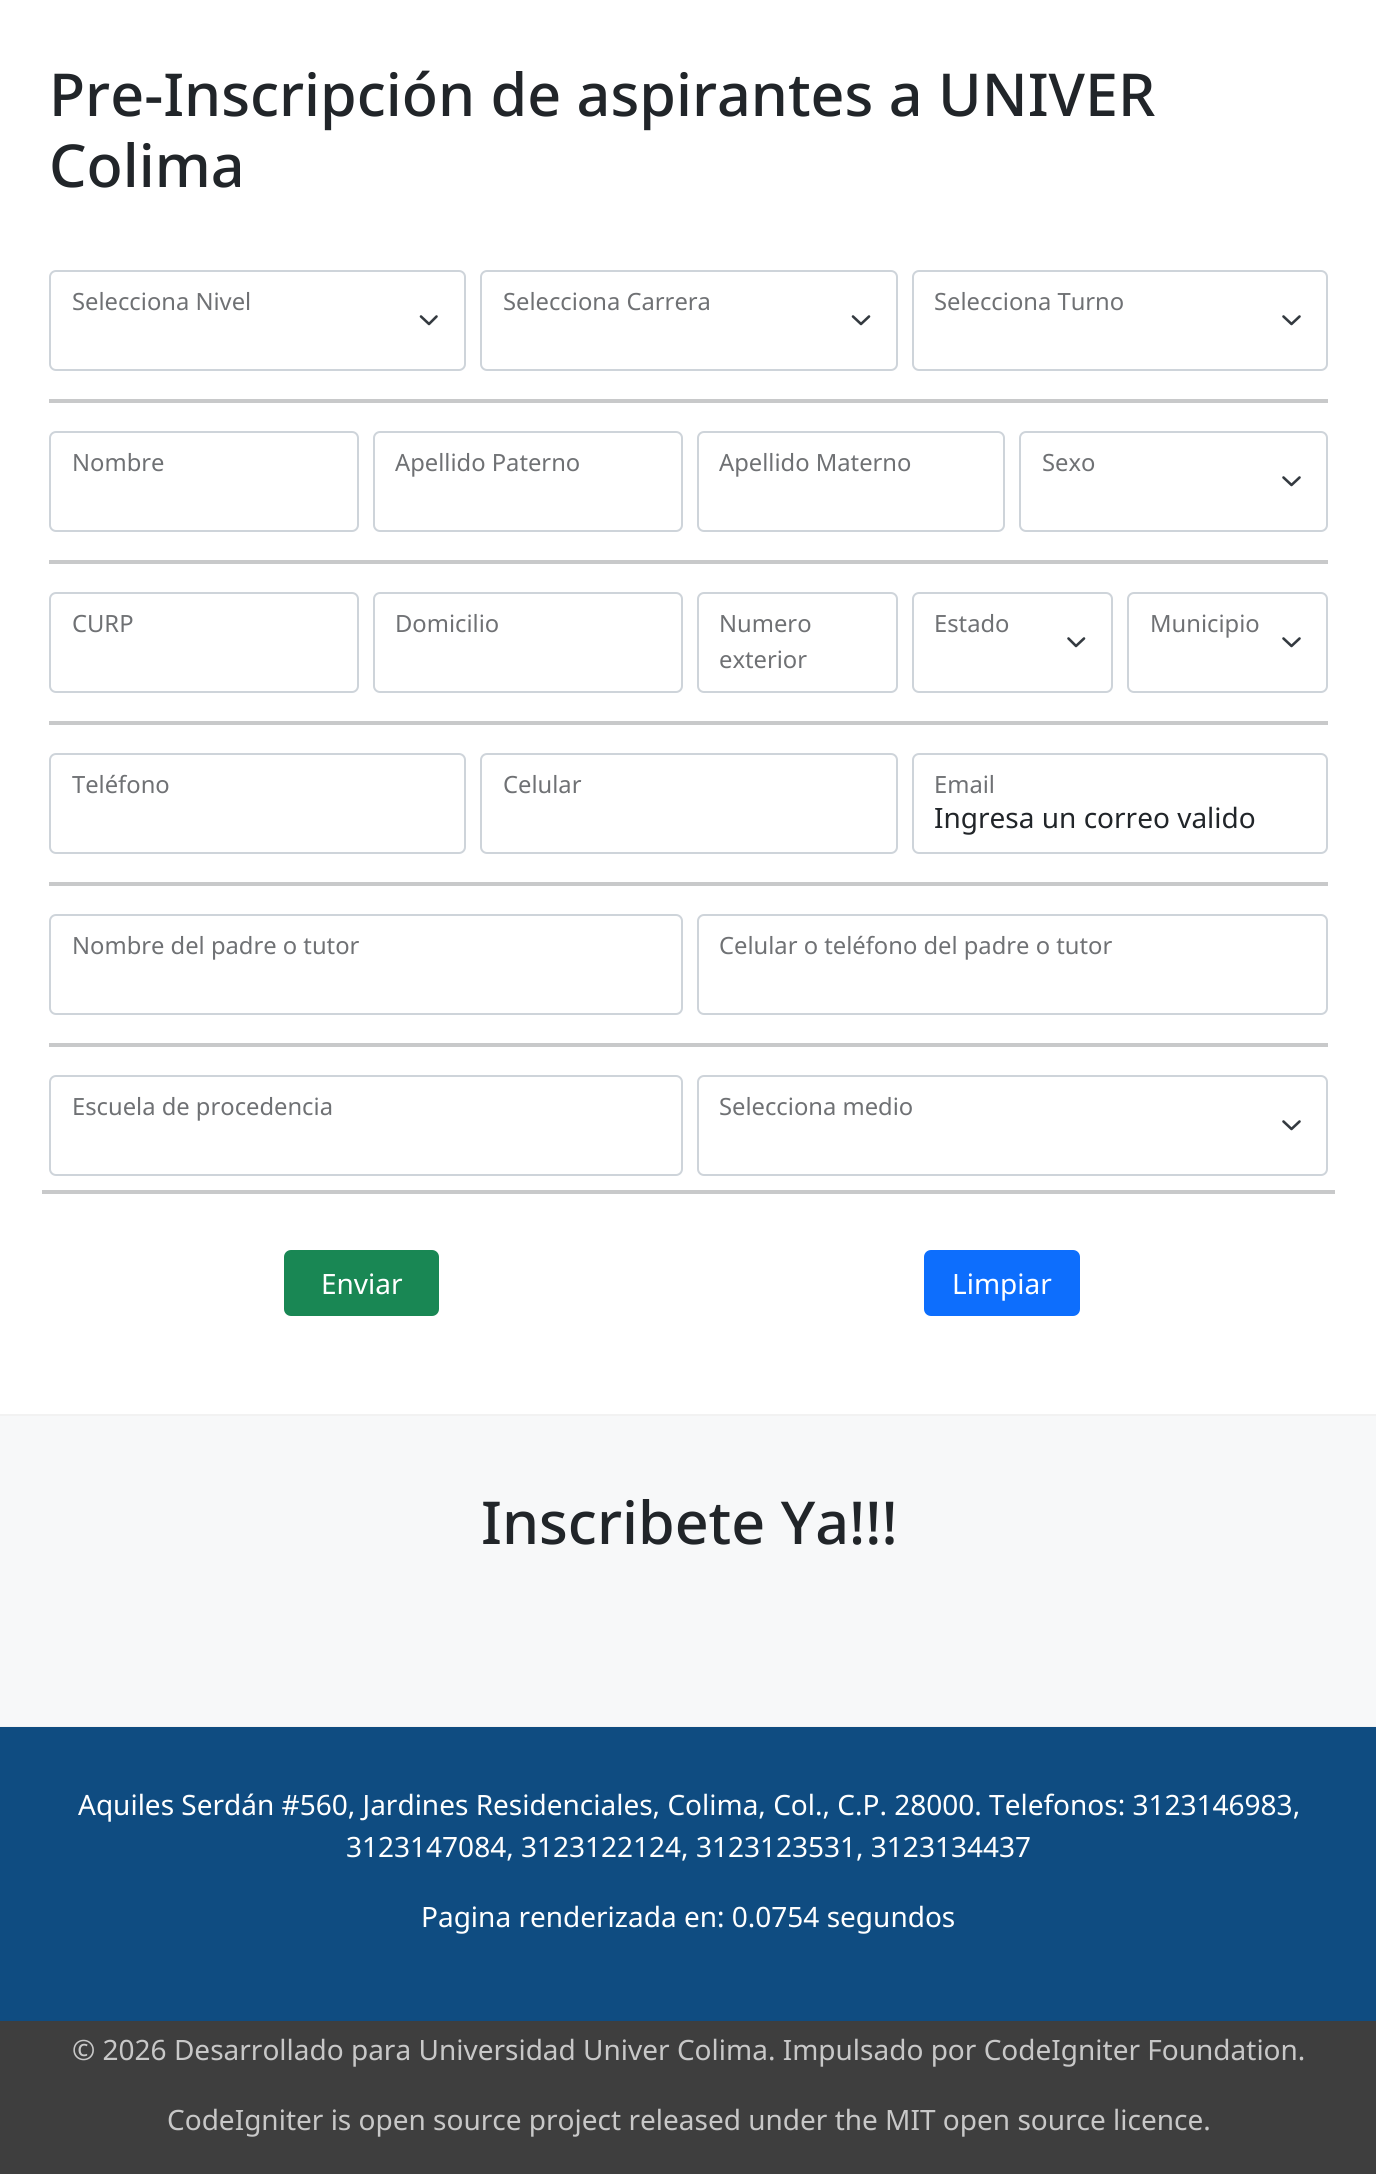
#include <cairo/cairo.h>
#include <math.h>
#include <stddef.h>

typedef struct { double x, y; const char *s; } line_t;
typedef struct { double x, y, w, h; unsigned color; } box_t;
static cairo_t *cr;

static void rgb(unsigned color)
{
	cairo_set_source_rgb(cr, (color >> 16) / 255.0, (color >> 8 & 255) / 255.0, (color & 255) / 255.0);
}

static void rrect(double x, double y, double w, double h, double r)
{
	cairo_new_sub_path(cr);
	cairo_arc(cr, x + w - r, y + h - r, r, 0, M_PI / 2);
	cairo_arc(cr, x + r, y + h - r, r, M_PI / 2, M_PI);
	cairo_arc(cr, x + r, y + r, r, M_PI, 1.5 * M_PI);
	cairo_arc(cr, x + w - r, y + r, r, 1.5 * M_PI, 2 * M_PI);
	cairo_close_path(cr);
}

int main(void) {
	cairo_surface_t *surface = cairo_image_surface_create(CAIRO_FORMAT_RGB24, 1376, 2174);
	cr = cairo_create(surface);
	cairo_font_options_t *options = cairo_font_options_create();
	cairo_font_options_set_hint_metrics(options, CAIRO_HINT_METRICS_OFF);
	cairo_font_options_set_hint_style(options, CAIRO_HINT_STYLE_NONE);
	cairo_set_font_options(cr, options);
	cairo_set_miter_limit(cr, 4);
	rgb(0xffffff);
	cairo_paint(cr);
	cairo_new_path(cr);
	cairo_move_to(cr, 421, 316.5);
	cairo_line_to(cr, 429, 324);
	cairo_line_to(cr, 436.5, 316.5);
	rgb(0x343a40);
	cairo_set_line_width(cr, 2.6);
	cairo_set_line_cap(cr, CAIRO_LINE_CAP_ROUND);
	cairo_set_line_join(cr, CAIRO_LINE_JOIN_ROUND);
	cairo_stroke(cr);
	rrect(50, 271, 415, 99, 6);
	rgb(0xced4da);
	cairo_set_line_width(cr, 2);
	cairo_set_line_cap(cr, CAIRO_LINE_CAP_BUTT);
	cairo_set_line_join(cr, CAIRO_LINE_JOIN_MITER);
	cairo_stroke(cr);
	cairo_new_path(cr);
	cairo_move_to(cr, 853, 316.5);
	cairo_line_to(cr, 861, 324);
	cairo_line_to(cr, 869, 316.5);
	rgb(0x343a40);
	cairo_set_line_width(cr, 2.6);
	cairo_set_line_cap(cr, CAIRO_LINE_CAP_ROUND);
	cairo_set_line_join(cr, CAIRO_LINE_JOIN_ROUND);
	cairo_stroke(cr);
	rrect(481, 271, 416, 99, 6);
	rgb(0xced4da);
	cairo_set_line_width(cr, 2);
	cairo_set_line_cap(cr, CAIRO_LINE_CAP_BUTT);
	cairo_set_line_join(cr, CAIRO_LINE_JOIN_MITER);
	cairo_stroke(cr);
	cairo_new_path(cr);
	cairo_move_to(cr, 1283.5, 316.5);
	cairo_line_to(cr, 1291.5, 324);
	cairo_line_to(cr, 1299.5, 316.5);
	rgb(0x343a40);
	cairo_set_line_width(cr, 2.6);
	cairo_set_line_cap(cr, CAIRO_LINE_CAP_ROUND);
	cairo_set_line_join(cr, CAIRO_LINE_JOIN_ROUND);
	cairo_stroke(cr);
	rrect(913, 271, 414, 99, 6);
	rgb(0xced4da);
	cairo_set_line_width(cr, 2);
	cairo_set_line_cap(cr, CAIRO_LINE_CAP_BUTT);
	cairo_set_line_join(cr, CAIRO_LINE_JOIN_MITER);
	cairo_stroke(cr);
	rgb(0xc8c9ca);
	cairo_rectangle(cr, 49, 399, 1279, 4);
	cairo_fill(cr);
	rrect(50, 432, 308, 99, 6);
	rgb(0xced4da);
	cairo_stroke(cr);
	rrect(374, 432, 308, 99, 6);
	cairo_stroke(cr);
	rrect(698, 432, 306, 99, 6);
	cairo_stroke(cr);
	cairo_new_path(cr);
	cairo_move_to(cr, 1283.5, 477.5);
	cairo_line_to(cr, 1291.5, 485);
	cairo_line_to(cr, 1299.5, 477.5);
	rgb(0x343a40);
	cairo_set_line_width(cr, 2.6);
	cairo_set_line_cap(cr, CAIRO_LINE_CAP_ROUND);
	cairo_set_line_join(cr, CAIRO_LINE_JOIN_ROUND);
	cairo_stroke(cr);
	rrect(1020, 432, 307, 99, 6);
	rgb(0xced4da);
	cairo_set_line_width(cr, 2);
	cairo_set_line_cap(cr, CAIRO_LINE_CAP_BUTT);
	cairo_set_line_join(cr, CAIRO_LINE_JOIN_MITER);
	cairo_stroke(cr);
	rgb(0xc8c9ca);
	cairo_rectangle(cr, 49, 560, 1279, 4);
	cairo_fill(cr);
	rrect(50, 593, 308, 99, 6);
	rgb(0xced4da);
	cairo_stroke(cr);
	rrect(374, 593, 308, 99, 6);
	cairo_stroke(cr);
	rrect(698, 593, 199, 99, 6);
	cairo_stroke(cr);
	cairo_new_path(cr);
	cairo_move_to(cr, 1068.5, 638.5);
	cairo_line_to(cr, 1076, 646);
	cairo_line_to(cr, 1084, 638.5);
	rgb(0x343a40);
	cairo_set_line_width(cr, 2.6);
	cairo_set_line_cap(cr, CAIRO_LINE_CAP_ROUND);
	cairo_set_line_join(cr, CAIRO_LINE_JOIN_ROUND);
	cairo_stroke(cr);
	rrect(913, 593, 199, 99, 6);
	rgb(0xced4da);
	cairo_set_line_width(cr, 2);
	cairo_set_line_cap(cr, CAIRO_LINE_CAP_BUTT);
	cairo_set_line_join(cr, CAIRO_LINE_JOIN_MITER);
	cairo_stroke(cr);
	cairo_new_path(cr);
	cairo_move_to(cr, 1283.5, 638.5);
	cairo_line_to(cr, 1291.5, 646);
	cairo_line_to(cr, 1299.5, 638.5);
	rgb(0x343a40);
	cairo_set_line_width(cr, 2.6);
	cairo_set_line_cap(cr, CAIRO_LINE_CAP_ROUND);
	cairo_set_line_join(cr, CAIRO_LINE_JOIN_ROUND);
	cairo_stroke(cr);
	rrect(1128, 593, 199, 99, 6);
	rgb(0xced4da);
	cairo_set_line_width(cr, 2);
	cairo_set_line_cap(cr, CAIRO_LINE_CAP_BUTT);
	cairo_set_line_join(cr, CAIRO_LINE_JOIN_MITER);
	cairo_stroke(cr);
	rgb(0xc8c9ca);
	cairo_rectangle(cr, 49, 721, 1279, 4);
	cairo_fill(cr);
	rrect(50, 754, 415, 99, 6);
	rgb(0xced4da);
	cairo_stroke(cr);
	rrect(481, 754, 416, 99, 6);
	cairo_stroke(cr);
	rrect(913, 754, 414, 99, 6);
	cairo_stroke(cr);
	rgb(0xc8c9ca);
	cairo_rectangle(cr, 49, 882, 1279, 4);
	cairo_fill(cr);
	rrect(50, 915, 632, 99, 6);
	rgb(0xced4da);
	cairo_stroke(cr);
	rrect(698, 915, 629, 99, 6);
	cairo_stroke(cr);
	rgb(0xc8c9ca);
	cairo_rectangle(cr, 49, 1043, 1279, 4);
	cairo_fill(cr);
	rrect(50, 1076, 632, 99, 6);
	rgb(0xced4da);
	cairo_stroke(cr);
	cairo_new_path(cr);
	cairo_move_to(cr, 1283.5, 1121.5);
	cairo_line_to(cr, 1291.5, 1129);
	cairo_line_to(cr, 1299.5, 1121.5);
	rgb(0x343a40);
	cairo_set_line_width(cr, 2.6);
	cairo_set_line_cap(cr, CAIRO_LINE_CAP_ROUND);
	cairo_set_line_join(cr, CAIRO_LINE_JOIN_ROUND);
	cairo_stroke(cr);
	rrect(698, 1076, 629, 99, 6);
	rgb(0xced4da);
	cairo_set_line_width(cr, 2);
	cairo_set_line_cap(cr, CAIRO_LINE_CAP_BUTT);
	cairo_set_line_join(cr, CAIRO_LINE_JOIN_MITER);
	cairo_stroke(cr);
	rgb(0xc8c9ca);
	cairo_rectangle(cr, 42, 1190, 1293, 4);
	cairo_fill(cr);
	rgb(0x198754);
	rrect(285, 1251, 153, 64, 6);
	cairo_fill_preserve(cr);
	cairo_stroke(cr);
	rgb(0x0d6efd);
	rrect(925, 1251, 154, 64, 6);
	cairo_fill_preserve(cr);
	cairo_stroke(cr);
	{
		static const box_t items[] = {
			{0, 1416, 1376, 310, 0xf7f8f9},
			{0, 1414, 1376, 2, 0xf2f2f2},
			{0, 1726, 1376, 1, 0xf2f2f2},
			{0, 1727, 1376, 294, 0x0f4c81},
			{0, 2021, 1376, 153, 0x3e3e3e},
		};
		for (size_t i = 0; i < sizeof items / sizeof *items; i++) {
			rgb(items[i].color);
			cairo_rectangle(cr, items[i].x, items[i].y, items[i].w, items[i].h);
			cairo_fill(cr);
		}
	}
	cairo_select_font_face(cr, "Noto Sans Medium", CAIRO_FONT_SLANT_NORMAL, CAIRO_FONT_WEIGHT_NORMAL);
	cairo_set_font_size(cr, 59.2);
	rgb(0x212529);
	cairo_move_to(cr, 49, 116);
	cairo_show_text(cr, "Pre-Inscripción de aspirantes a UNIVER");
	cairo_move_to(cr, 49, 187);
	cairo_show_text(cr, "Colima");
	cairo_select_font_face(cr, "Noto Sans", CAIRO_FONT_SLANT_NORMAL, CAIRO_FONT_WEIGHT_NORMAL);
	cairo_set_font_size(cr, 23.75);
	rgb(0x6f7174);
	{
		static const line_t items[] = {
			{72, 310, "Selecciona Nivel"},
			{503, 310, "Selecciona Carrera"},
			{934, 310, "Selecciona Turno"},
			{72, 471, "Nombre"},
			{395, 471, "Apellido Paterno"},
			{719, 471, "Apellido Materno"},
			{1042, 471, "Sexo"},
			{72, 632, "CURP"},
			{395, 632, "Domicilio"},
			{719, 632, "Numero"},
			{719, 668, "exterior"},
			{934, 632, "Estado"},
			{1150, 632, "Municipio"},
			{72, 793, "Teléfono"},
			{503, 793, "Celular"},
			{934, 793, "Email"},
		};
		for (size_t i = 0; i < sizeof items / sizeof *items; i++) {
			cairo_move_to(cr, items[i].x, items[i].y);
			cairo_show_text(cr, items[i].s);
		}
	}
	cairo_set_font_size(cr, 28);
	rgb(0x212529);
	cairo_move_to(cr, 934, 828);
	cairo_show_text(cr, "Ingresa un correo valido");
	cairo_set_font_size(cr, 23.75);
	rgb(0x6f7174);
	{
		static const line_t items[] = {
			{72, 954, "Nombre del padre o tutor"},
			{719, 954, "Celular o teléfono del padre o tutor"},
			{72, 1115, "Escuela de procedencia"},
			{719, 1115, "Selecciona medio"},
		};
		for (size_t i = 0; i < sizeof items / sizeof *items; i++) {
			cairo_move_to(cr, items[i].x, items[i].y);
			cairo_show_text(cr, items[i].s);
		}
	}
	cairo_set_font_size(cr, 28);
	rgb(0xffffff);
	cairo_move_to(cr, 321, 1294);
	cairo_show_text(cr, "Enviar");
	cairo_move_to(cr, 952, 1294);
	cairo_show_text(cr, "Limpiar");
	cairo_select_font_face(cr, "Noto Sans Medium", CAIRO_FONT_SLANT_NORMAL, CAIRO_FONT_WEIGHT_NORMAL);
	cairo_set_font_size(cr, 59.2);
	rgb(0x212529);
	cairo_move_to(cr, 481, 1544);
	cairo_show_text(cr, "Inscribete Ya!!!");
	cairo_select_font_face(cr, "Noto Sans", CAIRO_FONT_SLANT_NORMAL, CAIRO_FONT_WEIGHT_NORMAL);
	cairo_set_font_size(cr, 28);
	rgb(0xffffff);
	{
		static const line_t items[] = {
			{78, 1815, "Aquiles Serdán #560, Jardines Residenciales, Colima, Col., C.P. 28000. Telefonos: 3123146983,"},
			{346, 1857, "3123147084, 3123122124, 3123123531, 3123134437"},
			{421, 1927, "Pagina renderizada en: 0.0754 segundos"},
		};
		for (size_t i = 0; i < sizeof items / sizeof *items; i++) {
			cairo_move_to(cr, items[i].x, items[i].y);
			cairo_show_text(cr, items[i].s);
		}
	}
	rgb(0xc8c8c8);
	cairo_move_to(cr, 72, 2060);
	cairo_show_text(cr, "© 2026 Desarrollado para Universidad Univer Colima. Impulsado por CodeIgniter Foundation.");
	cairo_move_to(cr, 167, 2130);
	cairo_show_text(cr, "CodeIgniter is open source project released under the MIT open source licence.");
	cairo_surface_write_to_png(surface, "page.png");
	cairo_font_options_destroy(options);
	cairo_destroy(cr);
	cairo_surface_destroy(surface);
	return 0;
}
